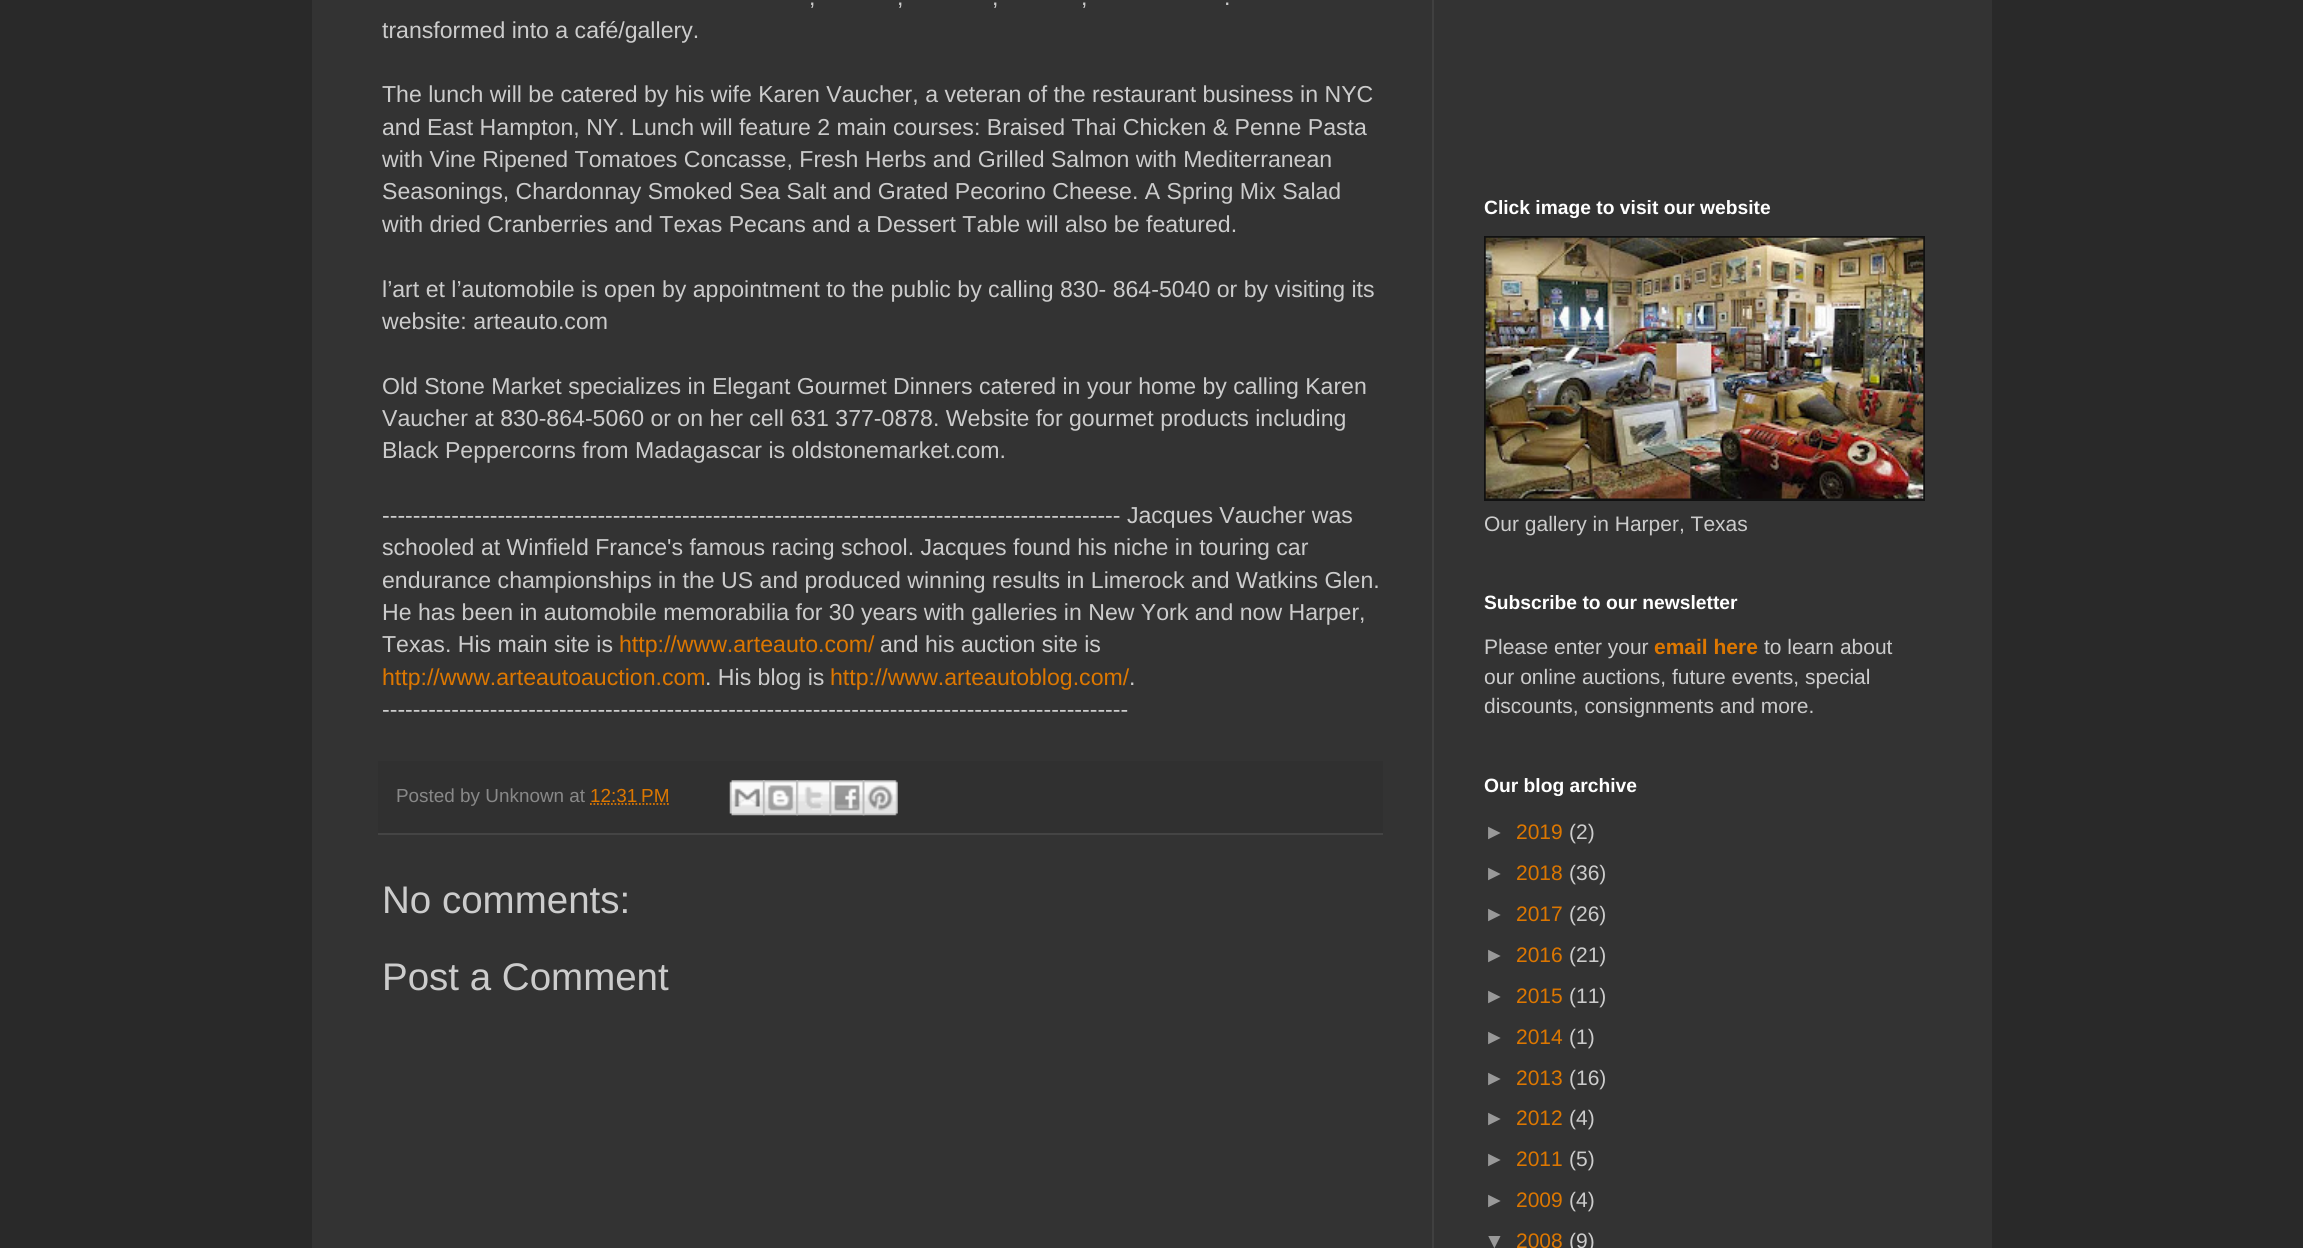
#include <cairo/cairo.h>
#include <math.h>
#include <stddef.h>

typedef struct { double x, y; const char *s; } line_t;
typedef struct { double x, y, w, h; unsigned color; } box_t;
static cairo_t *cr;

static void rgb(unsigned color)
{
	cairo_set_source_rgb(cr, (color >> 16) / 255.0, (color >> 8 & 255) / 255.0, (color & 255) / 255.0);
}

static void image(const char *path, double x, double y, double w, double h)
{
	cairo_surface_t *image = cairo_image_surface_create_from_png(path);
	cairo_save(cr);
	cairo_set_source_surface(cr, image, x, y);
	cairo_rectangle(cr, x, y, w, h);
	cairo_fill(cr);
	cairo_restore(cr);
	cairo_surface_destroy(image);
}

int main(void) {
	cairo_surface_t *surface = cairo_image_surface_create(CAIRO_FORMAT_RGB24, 2303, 1248);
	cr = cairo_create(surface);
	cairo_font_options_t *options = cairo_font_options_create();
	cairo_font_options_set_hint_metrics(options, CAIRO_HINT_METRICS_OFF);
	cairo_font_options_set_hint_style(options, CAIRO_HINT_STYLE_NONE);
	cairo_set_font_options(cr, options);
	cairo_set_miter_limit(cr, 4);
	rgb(0x292929);
	cairo_paint(cr);
	{
		static const box_t items[] = {
			{312, 0, 1680, 1248, 0x333333},
			{1432, 0, 2, 1248, 0x404040},
			{378, 761, 1005, 72, 0x303030},
			{378, 833, 1005, 2, 0x444444},
		};
		for (size_t i = 0; i < sizeof items / sizeof *items; i++) {
			rgb(items[i].color);
			cairo_rectangle(cr, items[i].x, items[i].y, items[i].w, items[i].h);
			cairo_fill(cr);
		}
	}
	cairo_new_path(cr);
	cairo_move_to(cr, 590, 804);
	cairo_line_to(cr, 669.5, 804);
	rgb(0xdd7700);
	cairo_set_line_width(cr, 1.8);
	cairo_set_dash(cr, (double[]){1.75, 1.75}, 2, 0);
	cairo_stroke(cr);
	image("img/1.png", 729, 780, 36, 36);
	image("img/2.png", 763, 780, 35, 36);
	image("img/3.png", 796, 780, 36, 36);
	image("img/4.png", 829, 780, 36, 36);
	image("img/5.png", 862, 780, 36, 36);
	rgb(0x111111);
	cairo_rectangle(cr, 1484, 236, 441, 265);
	cairo_fill(cr);
	image("img/6.png", 1485, 237, 439, 262);
	cairo_select_font_face(cr, "Liberation Sans", CAIRO_FONT_SLANT_NORMAL, CAIRO_FONT_WEIGHT_NORMAL);
	cairo_set_font_size(cr, 23.1);
	rgb(0xcccccc);
	{
		static const line_t items[] = {
			{809, 5, ","},
			{897, 5, ","},
			{992, 5, ","},
			{1081, 5, ","},
			{1224, 5, "."},
			{382, 38, "transformed into a café/gallery."},
			{382, 102, "The lunch will be catered by his wife Karen Vaucher, a veteran of the restaurant business in NYC"},
			{382, 135, "and East Hampton, NY. Lunch will feature 2 main courses: Braised Thai Chicken & Penne Pasta"},
			{382, 167, "with Vine Ripened Tomatoes Concasse, Fresh Herbs and Grilled Salmon with Mediterranean"},
			{382, 199, "Seasonings, Chardonnay Smoked Sea Salt and Grated Pecorino Cheese. A Spring Mix Salad"},
			{382, 232, "with dried Cranberries and Texas Pecans and a Dessert Table will also be featured."},
			{382, 297, "l’art et l’automobile is open by appointment to the public by calling 830- 864-5040 or by visiting its"},
			{382, 329, "website: arteauto.com"},
			{382, 394, "Old Stone Market specializes in Elegant Gourmet Dinners catered in your home by calling Karen"},
			{382, 426, "Vaucher at 830-864-5060 or on her cell 631 377-0878. Website for gourmet products including"},
			{382, 458, "Black Peppercorns from Madagascar is oldstonemarket.com."},
			{382, 523, "------------------------------------------------------------------------------------------------ Jacques Vaucher was"},
			{382, 555, "schooled at Winfield France's famous racing school. Jacques found his niche in touring car"},
			{382, 588, "endurance championships in the US and produced winning results in Limerock and Watkins Glen."},
			{382, 620, "He has been in automobile memorabilia for 30 years with galleries in New York and now Harper,"},
			{382, 652, "Texas. His main site is"},
		};
		for (size_t i = 0; i < sizeof items / sizeof *items; i++) {
			cairo_move_to(cr, items[i].x, items[i].y);
			cairo_show_text(cr, items[i].s);
		}
	}
	rgb(0xdd7700);
	cairo_move_to(cr, 619, 652);
	cairo_show_text(cr, "http://www.arteauto.com/");
	rgb(0xcccccc);
	cairo_move_to(cr, 880, 652);
	cairo_show_text(cr, "and his auction site is");
	rgb(0xdd7700);
	cairo_move_to(cr, 382, 685);
	cairo_show_text(cr, "http://www.arteautoauction.com");
	rgb(0xcccccc);
	cairo_move_to(cr, 705, 685);
	cairo_show_text(cr, ". His blog is");
	rgb(0xdd7700);
	cairo_move_to(cr, 830, 685);
	cairo_show_text(cr, "http://www.arteautoblog.com/");
	rgb(0xcccccc);
	cairo_move_to(cr, 1129, 685);
	cairo_show_text(cr, ".");
	cairo_move_to(cr, 382, 717);
	cairo_show_text(cr, "-------------------------------------------------------------------------------------------------");
	cairo_set_font_size(cr, 18.9);
	rgb(0x888888);
	cairo_move_to(cr, 396, 802);
	cairo_show_text(cr, "Posted by Unknown at");
	rgb(0xdd7700);
	cairo_move_to(cr, 590, 802);
	cairo_show_text(cr, "12:31 PM");
	cairo_set_font_size(cr, 38.5);
	rgb(0xcccccc);
	cairo_move_to(cr, 382, 913);
	cairo_show_text(cr, "No comments:");
	cairo_move_to(cr, 382, 990);
	cairo_show_text(cr, "Post a Comment");
	cairo_select_font_face(cr, "Liberation Sans", CAIRO_FONT_SLANT_NORMAL, CAIRO_FONT_WEIGHT_BOLD);
	cairo_set_font_size(cr, 19.25);
	rgb(0xffffff);
	cairo_move_to(cr, 1484, 214);
	cairo_show_text(cr, "Click image to visit our website");
	cairo_select_font_face(cr, "Liberation Sans", CAIRO_FONT_SLANT_NORMAL, CAIRO_FONT_WEIGHT_NORMAL);
	cairo_set_font_size(cr, 21);
	rgb(0xcccccc);
	cairo_move_to(cr, 1484, 531);
	cairo_show_text(cr, "Our gallery in Harper, Texas");
	cairo_select_font_face(cr, "Liberation Sans", CAIRO_FONT_SLANT_NORMAL, CAIRO_FONT_WEIGHT_BOLD);
	cairo_set_font_size(cr, 19.25);
	rgb(0xffffff);
	cairo_move_to(cr, 1484, 609);
	cairo_show_text(cr, "Subscribe to our newsletter");
	cairo_select_font_face(cr, "Liberation Sans", CAIRO_FONT_SLANT_NORMAL, CAIRO_FONT_WEIGHT_NORMAL);
	cairo_set_font_size(cr, 21);
	rgb(0xcccccc);
	cairo_move_to(cr, 1484, 654);
	cairo_show_text(cr, "Please enter your");
	cairo_select_font_face(cr, "Liberation Sans", CAIRO_FONT_SLANT_NORMAL, CAIRO_FONT_WEIGHT_BOLD);
	rgb(0xdd7700);
	cairo_move_to(cr, 1654, 654);
	cairo_show_text(cr, "email here");
	cairo_select_font_face(cr, "Liberation Sans", CAIRO_FONT_SLANT_NORMAL, CAIRO_FONT_WEIGHT_NORMAL);
	rgb(0xcccccc);
	{
		static const line_t items[] = {
			{1764, 654, "to learn about"},
			{1484, 684, "our online auctions, future events, special"},
			{1484, 713, "discounts, consignments and more."},
		};
		for (size_t i = 0; i < sizeof items / sizeof *items; i++) {
			cairo_move_to(cr, items[i].x, items[i].y);
			cairo_show_text(cr, items[i].s);
		}
	}
	cairo_select_font_face(cr, "Liberation Sans", CAIRO_FONT_SLANT_NORMAL, CAIRO_FONT_WEIGHT_BOLD);
	cairo_set_font_size(cr, 19.25);
	rgb(0xffffff);
	cairo_move_to(cr, 1484, 792);
	cairo_show_text(cr, "Our blog archive");
	cairo_select_font_face(cr, "Liberation Sans", CAIRO_FONT_SLANT_NORMAL, CAIRO_FONT_WEIGHT_NORMAL);
	cairo_set_font_size(cr, 21);
	rgb(0x999999);
	cairo_move_to(cr, 1484, 839);
	cairo_show_text(cr, "►");
	rgb(0xdd7700);
	cairo_move_to(cr, 1516, 839);
	cairo_show_text(cr, "2019");
	rgb(0xcccccc);
	cairo_move_to(cr, 1569, 839);
	cairo_show_text(cr, "(2)");
	rgb(0x999999);
	cairo_move_to(cr, 1484, 880);
	cairo_show_text(cr, "►");
	rgb(0xdd7700);
	cairo_move_to(cr, 1516, 880);
	cairo_show_text(cr, "2018");
	rgb(0xcccccc);
	cairo_move_to(cr, 1569, 880);
	cairo_show_text(cr, "(36)");
	rgb(0x999999);
	cairo_move_to(cr, 1484, 921);
	cairo_show_text(cr, "►");
	rgb(0xdd7700);
	cairo_move_to(cr, 1516, 921);
	cairo_show_text(cr, "2017");
	rgb(0xcccccc);
	cairo_move_to(cr, 1569, 921);
	cairo_show_text(cr, "(26)");
	rgb(0x999999);
	cairo_move_to(cr, 1484, 962);
	cairo_show_text(cr, "►");
	rgb(0xdd7700);
	cairo_move_to(cr, 1516, 962);
	cairo_show_text(cr, "2016");
	rgb(0xcccccc);
	cairo_move_to(cr, 1569, 962);
	cairo_show_text(cr, "(21)");
	rgb(0x999999);
	cairo_move_to(cr, 1484, 1003);
	cairo_show_text(cr, "►");
	rgb(0xdd7700);
	cairo_move_to(cr, 1516, 1003);
	cairo_show_text(cr, "2015");
	rgb(0xcccccc);
	cairo_move_to(cr, 1569, 1003);
	cairo_show_text(cr, "(11)");
	rgb(0x999999);
	cairo_move_to(cr, 1484, 1044);
	cairo_show_text(cr, "►");
	rgb(0xdd7700);
	cairo_move_to(cr, 1516, 1044);
	cairo_show_text(cr, "2014");
	rgb(0xcccccc);
	cairo_move_to(cr, 1569, 1044);
	cairo_show_text(cr, "(1)");
	rgb(0x999999);
	cairo_move_to(cr, 1484, 1085);
	cairo_show_text(cr, "►");
	rgb(0xdd7700);
	cairo_move_to(cr, 1516, 1085);
	cairo_show_text(cr, "2013");
	rgb(0xcccccc);
	cairo_move_to(cr, 1569, 1085);
	cairo_show_text(cr, "(16)");
	rgb(0x999999);
	cairo_move_to(cr, 1484, 1125);
	cairo_show_text(cr, "►");
	rgb(0xdd7700);
	cairo_move_to(cr, 1516, 1125);
	cairo_show_text(cr, "2012");
	rgb(0xcccccc);
	cairo_move_to(cr, 1569, 1125);
	cairo_show_text(cr, "(4)");
	rgb(0x999999);
	cairo_move_to(cr, 1484, 1166);
	cairo_show_text(cr, "►");
	rgb(0xdd7700);
	cairo_move_to(cr, 1516, 1166);
	cairo_show_text(cr, "2011");
	rgb(0xcccccc);
	cairo_move_to(cr, 1569, 1166);
	cairo_show_text(cr, "(5)");
	rgb(0x999999);
	cairo_move_to(cr, 1484, 1207);
	cairo_show_text(cr, "►");
	rgb(0xdd7700);
	cairo_move_to(cr, 1516, 1207);
	cairo_show_text(cr, "2009");
	rgb(0xcccccc);
	cairo_move_to(cr, 1569, 1207);
	cairo_show_text(cr, "(4)");
	rgb(0x999999);
	cairo_move_to(cr, 1484, 1248);
	cairo_show_text(cr, "▼");
	rgb(0xdd7700);
	cairo_move_to(cr, 1516, 1248);
	cairo_show_text(cr, "2008");
	rgb(0xcccccc);
	cairo_move_to(cr, 1569, 1248);
	cairo_show_text(cr, "(9)");
	cairo_surface_write_to_png(surface, "page.png");
	cairo_font_options_destroy(options);
	cairo_destroy(cr);
	cairo_surface_destroy(surface);
	return 0;
}
